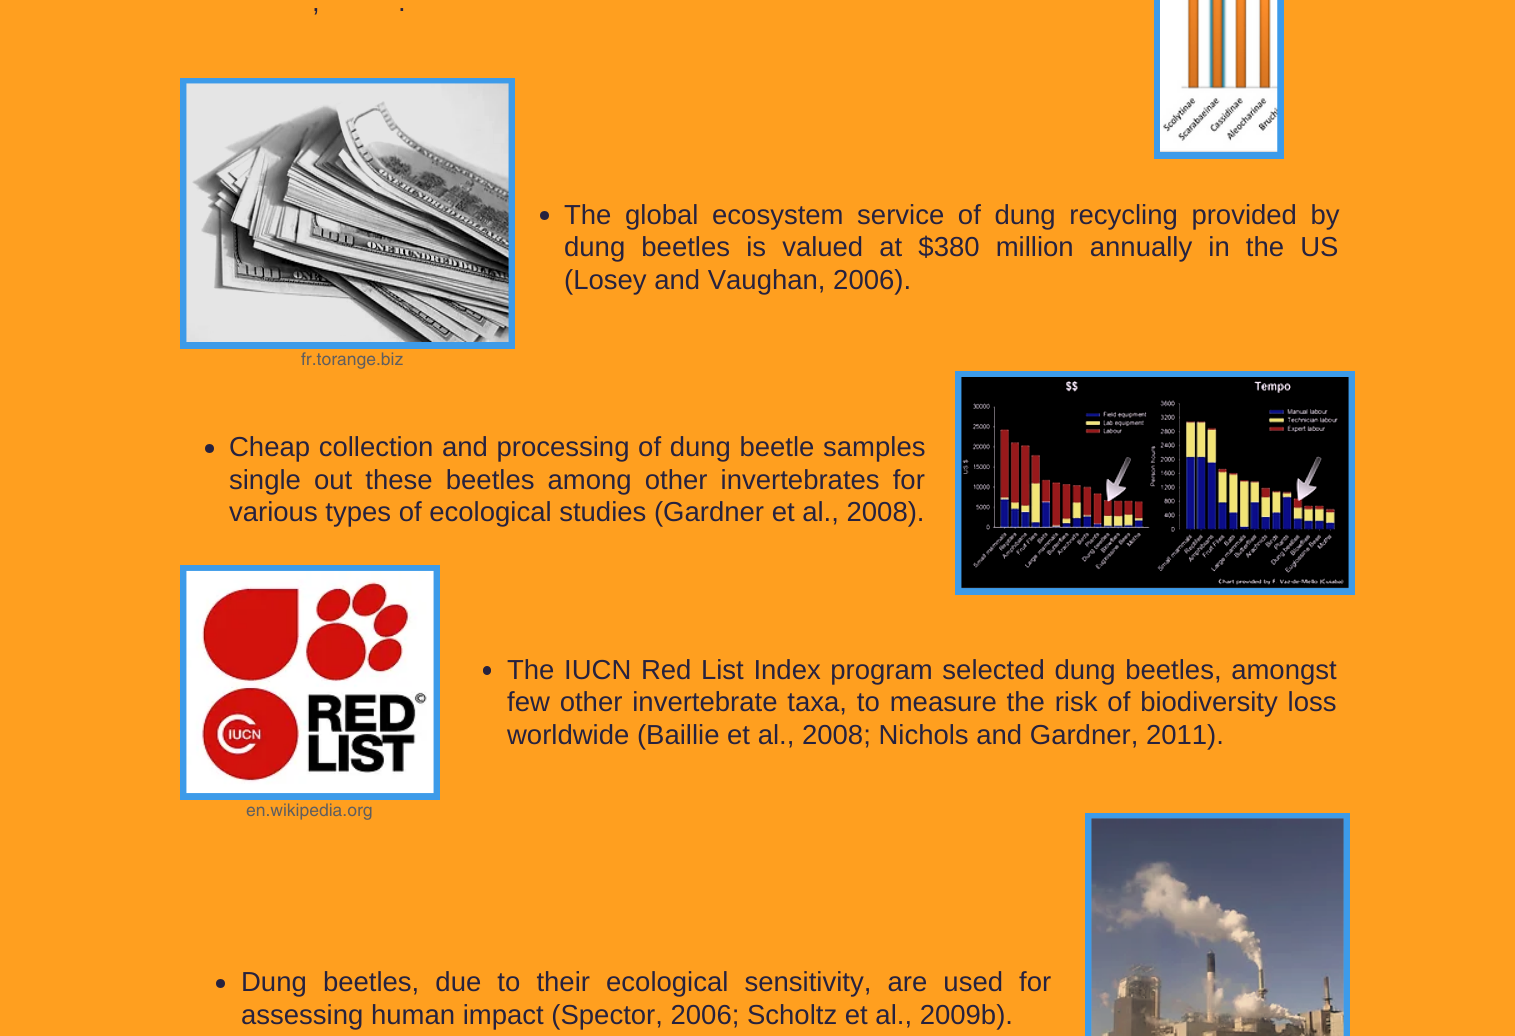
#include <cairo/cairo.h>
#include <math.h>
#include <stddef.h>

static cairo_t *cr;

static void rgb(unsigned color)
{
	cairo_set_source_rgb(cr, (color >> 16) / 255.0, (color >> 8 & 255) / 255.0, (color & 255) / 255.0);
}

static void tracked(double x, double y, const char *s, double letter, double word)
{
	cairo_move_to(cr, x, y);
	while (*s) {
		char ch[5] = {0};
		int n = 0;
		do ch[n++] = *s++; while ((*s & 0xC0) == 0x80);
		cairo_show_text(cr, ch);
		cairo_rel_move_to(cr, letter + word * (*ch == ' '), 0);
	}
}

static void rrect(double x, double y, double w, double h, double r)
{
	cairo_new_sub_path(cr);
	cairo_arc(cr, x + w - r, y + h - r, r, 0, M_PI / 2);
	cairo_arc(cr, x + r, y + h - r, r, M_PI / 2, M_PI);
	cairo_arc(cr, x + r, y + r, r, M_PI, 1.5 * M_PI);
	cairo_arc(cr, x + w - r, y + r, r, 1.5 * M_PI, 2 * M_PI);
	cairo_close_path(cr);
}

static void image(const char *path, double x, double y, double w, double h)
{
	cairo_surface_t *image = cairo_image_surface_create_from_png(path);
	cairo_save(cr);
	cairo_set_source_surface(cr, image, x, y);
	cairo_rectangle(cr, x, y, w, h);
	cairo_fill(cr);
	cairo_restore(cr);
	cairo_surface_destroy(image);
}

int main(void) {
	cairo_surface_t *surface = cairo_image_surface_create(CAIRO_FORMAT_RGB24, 1515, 1036);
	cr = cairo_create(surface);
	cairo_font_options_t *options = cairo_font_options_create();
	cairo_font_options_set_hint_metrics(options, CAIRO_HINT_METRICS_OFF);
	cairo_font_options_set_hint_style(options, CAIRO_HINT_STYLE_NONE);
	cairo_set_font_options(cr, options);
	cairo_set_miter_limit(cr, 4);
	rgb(0xff9f1f);
	cairo_paint(cr);
	rgb(0x3d9be9);
	cairo_rectangle(cr, 1154, 0, 130, 159);
	cairo_fill(cr);
	image("img/1.png", 1160, 0, 118, 152);
	cairo_rectangle(cr, 180, 78, 335, 271);
	cairo_fill(cr);
	image("img/2.png", 186, 83, 323, 259);
	rgb(0x27223e);
	cairo_arc(cr, 544.5, 215.5, 4.5, 0, 2 * M_PI);
	cairo_fill(cr);
	cairo_arc(cr, 209.5, 448.5, 4.5, 0, 2 * M_PI);
	cairo_fill(cr);
	rgb(0x3d9be9);
	cairo_rectangle(cr, 955, 371, 400, 224);
	cairo_fill(cr);
	image("img/3.png", 961, 377, 388, 212);
	cairo_rectangle(cr, 180, 565, 260, 235);
	cairo_fill(cr);
	image("img/4.png", 186, 570, 248, 224);
	rgb(0x27223e);
	rrect(483, 666, 8, 9, 4);
	cairo_fill(cr);
	rgb(0x3d9be9);
	cairo_rectangle(cr, 1085, 813, 265, 223);
	cairo_fill(cr);
	image("img/5.png", 1091, 818, 253, 218);
	rgb(0x27223e);
	cairo_arc(cr, 220.5, 983.5, 4.5, 0, 2 * M_PI);
	cairo_fill(cr);
	cairo_select_font_face(cr, "Liberation Sans", CAIRO_FONT_SLANT_NORMAL, CAIRO_FONT_WEIGHT_NORMAL);
	cairo_set_font_size(cr, 27.5);
	cairo_move_to(cr, 312, 11);
	cairo_show_text(cr, ",");
	cairo_move_to(cr, 398, 11);
	cairo_show_text(cr, ".");
	tracked(564, 224, "The global ecosystem service of dung recycling provided by", 0, 6);
	tracked(564, 256, "dung beetles is valued at $380 million annually in the US", 0, 8.5);
	cairo_move_to(cr, 564, 289);
	cairo_show_text(cr, "(Losey and Vaughan, 2006).");
	cairo_select_font_face(cr, "helvetica", CAIRO_FONT_SLANT_NORMAL, CAIRO_FONT_WEIGHT_NORMAL);
	cairo_set_font_size(cr, 17.5);
	rgb(0x605e5e);
	cairo_move_to(cr, 301, 365);
	cairo_show_text(cr, "fr.torange.biz");
	cairo_select_font_face(cr, "Liberation Sans", CAIRO_FONT_SLANT_NORMAL, CAIRO_FONT_WEIGHT_NORMAL);
	cairo_set_font_size(cr, 27.5);
	rgb(0x27223e);
	tracked(229, 456, "Cheap collection and processing of dung beetle samples", 0, 1);
	tracked(229, 489, "single out these beetles among other invertebrates for", 0, 5.5);
	cairo_move_to(cr, 229, 521);
	cairo_show_text(cr, "various types of ecological studies (Gardner et al., 2008).");
	tracked(507, 679, "The IUCN Red List Index program selected dung beetles, amongst", 0, 2);
	tracked(507, 711, "few other invertebrate taxa, to measure the risk of biodiversity loss", 0, 2.25);
	cairo_move_to(cr, 507, 744);
	cairo_show_text(cr, "worldwide (Baillie et al., 2008; Nichols and Gardner, 2011).");
	cairo_select_font_face(cr, "helvetica", CAIRO_FONT_SLANT_NORMAL, CAIRO_FONT_WEIGHT_NORMAL);
	cairo_set_font_size(cr, 17.5);
	rgb(0x605e5e);
	cairo_move_to(cr, 246, 816);
	cairo_show_text(cr, "en.wikipedia.org");
	cairo_select_font_face(cr, "Liberation Sans", CAIRO_FONT_SLANT_NORMAL, CAIRO_FONT_WEIGHT_NORMAL);
	cairo_set_font_size(cr, 27.5);
	rgb(0x27223e);
	tracked(241, 991, "Dung beetles, due to their ecological sensitivity, are used for", 0, 8.5);
	cairo_move_to(cr, 241, 1024);
	cairo_show_text(cr, "assessing human impact (Spector, 2006; Scholtz et al., 2009b).");
	cairo_surface_write_to_png(surface, "page.png");
	cairo_font_options_destroy(options);
	cairo_destroy(cr);
	cairo_surface_destroy(surface);
	return 0;
}
